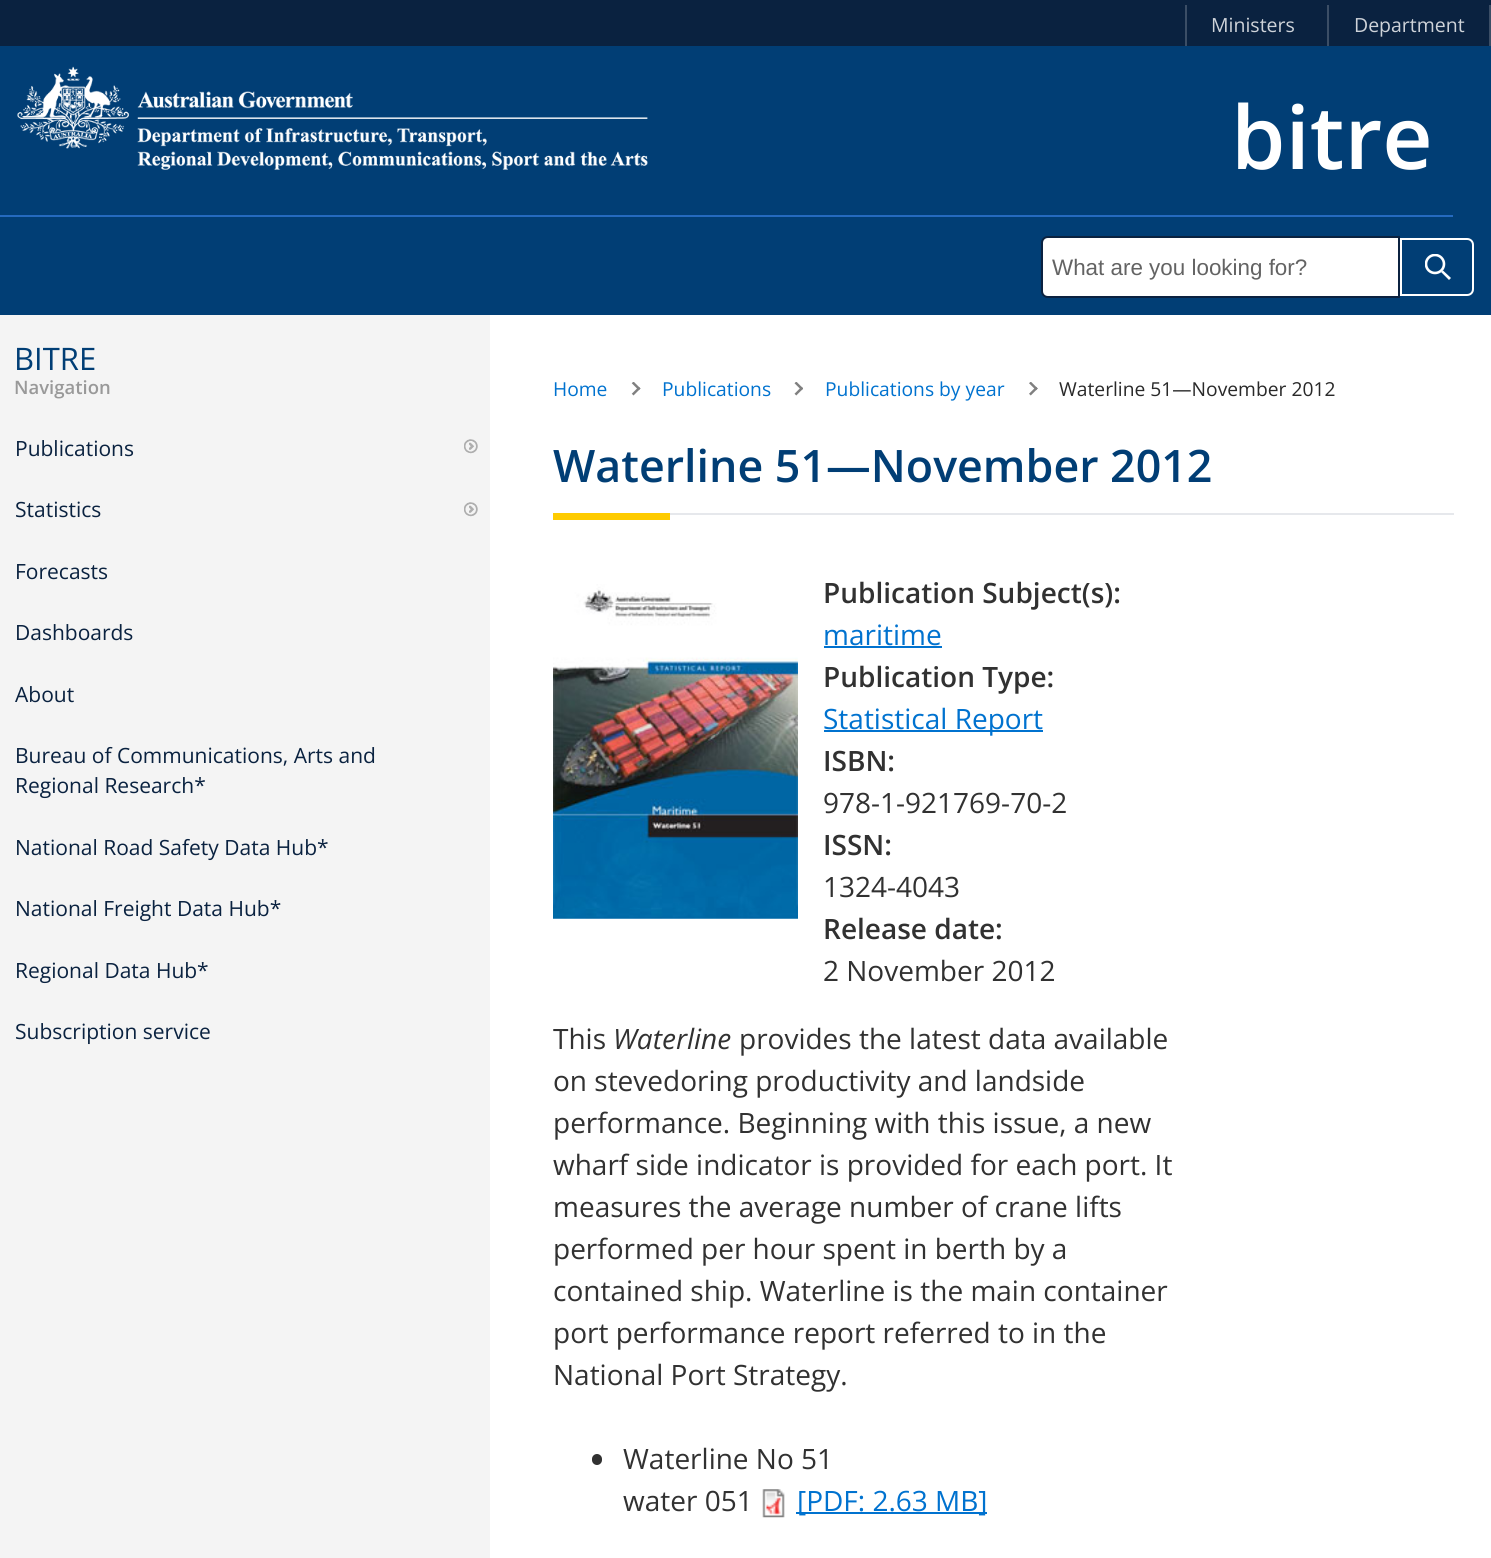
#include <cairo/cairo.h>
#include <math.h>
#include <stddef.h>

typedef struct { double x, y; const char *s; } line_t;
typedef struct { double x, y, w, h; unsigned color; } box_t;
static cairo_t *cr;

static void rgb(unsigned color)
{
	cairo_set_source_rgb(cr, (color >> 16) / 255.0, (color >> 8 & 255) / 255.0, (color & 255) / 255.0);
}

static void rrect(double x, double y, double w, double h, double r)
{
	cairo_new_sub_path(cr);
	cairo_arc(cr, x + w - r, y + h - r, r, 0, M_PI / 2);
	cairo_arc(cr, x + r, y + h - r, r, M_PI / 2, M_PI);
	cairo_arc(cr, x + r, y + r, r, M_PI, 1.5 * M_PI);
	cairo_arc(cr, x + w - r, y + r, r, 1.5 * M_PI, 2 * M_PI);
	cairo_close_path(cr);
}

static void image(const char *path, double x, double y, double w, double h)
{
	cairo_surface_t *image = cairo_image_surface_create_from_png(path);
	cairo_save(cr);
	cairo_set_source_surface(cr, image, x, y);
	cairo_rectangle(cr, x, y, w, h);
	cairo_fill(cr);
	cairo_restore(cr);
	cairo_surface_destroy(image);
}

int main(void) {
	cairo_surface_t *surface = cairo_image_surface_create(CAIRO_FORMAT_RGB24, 1491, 1558);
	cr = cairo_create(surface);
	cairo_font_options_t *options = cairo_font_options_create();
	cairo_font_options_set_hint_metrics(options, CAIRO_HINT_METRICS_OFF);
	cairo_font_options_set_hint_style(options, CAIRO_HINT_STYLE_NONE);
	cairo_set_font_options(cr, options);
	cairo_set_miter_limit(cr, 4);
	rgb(0xf4f4f4);
	cairo_paint(cr);
	{
		static const box_t items[] = {
			{0, 0, 1491, 46, 0x0a2240},
			{1185, 5, 2, 41, 0x3b4e66},
			{1489, 5, 2, 41, 0x3b4e66},
			{1327, 5, 2, 41, 0x3b4e66},
			{0, 46, 1491, 269, 0x013e75},
			{0, 215, 1453, 2, 0x256abf},
		};
		for (size_t i = 0; i < sizeof items / sizeof *items; i++) {
			rgb(items[i].color);
			cairo_rectangle(cr, items[i].x, items[i].y, items[i].w, items[i].h);
			cairo_fill(cr);
		}
	}
	image("img/1.png", 17, 66, 631, 104);
	rgb(0xffffff);
	cairo_new_path(cr);
	cairo_move_to(cr, 1048, 237);
	cairo_line_to(cr, 1399, 237);
	cairo_line_to(cr, 1399, 297);
	cairo_line_to(cr, 1048, 297);
	cairo_curve_to(cr, 1044.5, 297, 1042, 294.5, 1042, 291);
	cairo_line_to(cr, 1042, 243);
	cairo_curve_to(cr, 1042, 239.5, 1044.5, 237, 1048, 237);
	cairo_close_path(cr);
	cairo_fill_preserve(cr);
	rgb(0x0b2240);
	cairo_stroke(cr);
	cairo_save(cr);
	cairo_rectangle(cr, 1425, 254, 26, 26);
	cairo_clip(cr);
	cairo_arc(cr, 1435, 264, 9, 0, 2 * M_PI);
	rgb(0xffffff);
	cairo_set_line_width(cr, 2.6);
	cairo_stroke(cr);
	cairo_restore(cr);
	rgb(0xffffff);
	cairo_new_path(cr);
	cairo_move_to(cr, 1443, 270.5);
	cairo_line_to(cr, 1451, 278);
	cairo_line_to(cr, 1449, 280);
	cairo_line_to(cr, 1441, 272);
	cairo_close_path(cr);
	cairo_fill(cr);
	cairo_new_path(cr);
	cairo_move_to(cr, 1401, 239);
	cairo_line_to(cr, 1467, 239);
	cairo_curve_to(cr, 1470.5, 239, 1473, 241.5, 1473, 245);
	cairo_line_to(cr, 1473, 289);
	cairo_curve_to(cr, 1473, 292.5, 1470.5, 295, 1467, 295);
	cairo_line_to(cr, 1401, 295);
	cairo_close_path(cr);
	cairo_stroke(cr);
	image("img/2.png", 464, 439, 14, 15);
	image("img/3.png", 464, 502, 14, 15);
	cairo_rectangle(cr, 490, 315, 1001, 1243);
	cairo_fill(cr);
	image("img/4.png", 631, 382, 10, 14);
	image("img/5.png", 794, 382, 9, 14);
	image("img/6.png", 1029, 382, 9, 14);
	rgb(0xe6e8ec);
	cairo_rectangle(cr, 670, 513, 784, 2);
	cairo_fill(cr);
	rgb(0xfecb00);
	cairo_rectangle(cr, 553, 513, 117, 7);
	cairo_fill(cr);
	image("img/7.png", 553, 584, 245, 335);
	rgb(0x0072cf);
	cairo_rectangle(cr, 824, 646, 118, 2);
	cairo_fill(cr);
	cairo_rectangle(cr, 824, 730, 219, 2);
	cairo_fill(cr);
	rgb(0x313131);
	rrect(592, 1454, 10, 11, 5);
	cairo_fill(cr);
	image("img/8.png", 762, 1489, 23, 29);
	rgb(0x0072cf);
	cairo_rectangle(cr, 796, 1512, 191, 2);
	cairo_fill(cr);
	cairo_select_font_face(cr, "Open Sans", CAIRO_FONT_SLANT_NORMAL, CAIRO_FONT_WEIGHT_NORMAL);
	cairo_set_font_size(cr, 19.5);
	rgb(0xced3d9);
	cairo_move_to(cr, 1211, 32);
	cairo_show_text(cr, "Ministers");
	cairo_move_to(cr, 1354, 32);
	cairo_show_text(cr, "Department");
	cairo_select_font_face(cr, "Open Sans SemiBold", CAIRO_FONT_SLANT_NORMAL, CAIRO_FONT_WEIGHT_NORMAL);
	cairo_set_font_size(cr, 87.5);
	rgb(0xffffff);
	cairo_move_to(cr, 1231, 169);
	cairo_show_text(cr, "bitre");
	cairo_select_font_face(cr, "Liberation Sans", CAIRO_FONT_SLANT_NORMAL, CAIRO_FONT_WEIGHT_NORMAL);
	cairo_set_font_size(cr, 22.4);
	rgb(0x636363);
	cairo_move_to(cr, 1052, 275);
	cairo_show_text(cr, "What are you looking for?");
	cairo_select_font_face(cr, "Open Sans", CAIRO_FONT_SLANT_NORMAL, CAIRO_FONT_WEIGHT_NORMAL);
	cairo_set_font_size(cr, 31);
	rgb(0x013e75);
	cairo_move_to(cr, 14, 370);
	cairo_show_text(cr, "BITRE");
	cairo_select_font_face(cr, "Open Sans SemiBold", CAIRO_FONT_SLANT_NORMAL, CAIRO_FONT_WEIGHT_NORMAL);
	cairo_set_font_size(cr, 18.5);
	rgb(0x999999);
	cairo_move_to(cr, 14, 394);
	cairo_show_text(cr, "Navigation");
	cairo_select_font_face(cr, "Open Sans", CAIRO_FONT_SLANT_NORMAL, CAIRO_FONT_WEIGHT_NORMAL);
	cairo_set_font_size(cr, 21);
	rgb(0x0a2240);
	{
		static const line_t items[] = {
			{15, 456, "Publications"},
			{15, 517, "Statistics"},
			{15, 579, "Forecasts"},
			{15, 640, "Dashboards"},
			{15, 702, "About"},
			{15, 763, "Bureau of Communications, Arts and"},
			{15, 793, "Regional Research*"},
			{15, 855, "National Road Safety Data Hub*"},
			{15, 916, "National Freight Data Hub*"},
			{15, 978, "Regional Data Hub*"},
			{15, 1039, "Subscription service"},
		};
		for (size_t i = 0; i < sizeof items / sizeof *items; i++) {
			cairo_move_to(cr, items[i].x, items[i].y);
			cairo_show_text(cr, items[i].s);
		}
	}
	cairo_set_font_size(cr, 19.25);
	rgb(0x0072cf);
	{
		static const line_t items[] = {
			{553, 396, "Home"},
			{662, 396, "Publications"},
			{825, 396, "Publications by year"},
		};
		for (size_t i = 0; i < sizeof items / sizeof *items; i++) {
			cairo_move_to(cr, items[i].x, items[i].y);
			cairo_show_text(cr, items[i].s);
		}
	}
	rgb(0x292929);
	cairo_move_to(cr, 1059, 396);
	cairo_show_text(cr, "Waterline 51—November 2012");
	cairo_select_font_face(cr, "Open Sans SemiBold", CAIRO_FONT_SLANT_NORMAL, CAIRO_FONT_WEIGHT_NORMAL);
	cairo_set_font_size(cr, 44.75);
	rgb(0x013e75);
	cairo_move_to(cr, 553, 482);
	cairo_show_text(cr, "Waterline 51—November 2012");
	cairo_set_font_size(cr, 28);
	rgb(0x313131);
	cairo_move_to(cr, 823, 603);
	cairo_show_text(cr, "Publication Subject(s):");
	cairo_select_font_face(cr, "Open Sans", CAIRO_FONT_SLANT_NORMAL, CAIRO_FONT_WEIGHT_NORMAL);
	rgb(0x0072cf);
	cairo_move_to(cr, 823, 645);
	cairo_show_text(cr, "maritime");
	cairo_select_font_face(cr, "Open Sans SemiBold", CAIRO_FONT_SLANT_NORMAL, CAIRO_FONT_WEIGHT_NORMAL);
	rgb(0x313131);
	cairo_move_to(cr, 823, 687);
	cairo_show_text(cr, "Publication Type:");
	cairo_select_font_face(cr, "Open Sans", CAIRO_FONT_SLANT_NORMAL, CAIRO_FONT_WEIGHT_NORMAL);
	rgb(0x0072cf);
	cairo_move_to(cr, 823, 729);
	cairo_show_text(cr, "Statistical Report");
	cairo_select_font_face(cr, "Open Sans SemiBold", CAIRO_FONT_SLANT_NORMAL, CAIRO_FONT_WEIGHT_NORMAL);
	rgb(0x313131);
	cairo_move_to(cr, 823, 771);
	cairo_show_text(cr, "ISBN:");
	cairo_select_font_face(cr, "Open Sans", CAIRO_FONT_SLANT_NORMAL, CAIRO_FONT_WEIGHT_NORMAL);
	cairo_move_to(cr, 823, 813);
	cairo_show_text(cr, "978-1-921769-70-2");
	cairo_select_font_face(cr, "Open Sans SemiBold", CAIRO_FONT_SLANT_NORMAL, CAIRO_FONT_WEIGHT_NORMAL);
	cairo_move_to(cr, 823, 855);
	cairo_show_text(cr, "ISSN:");
	cairo_select_font_face(cr, "Open Sans", CAIRO_FONT_SLANT_NORMAL, CAIRO_FONT_WEIGHT_NORMAL);
	cairo_move_to(cr, 823, 897);
	cairo_show_text(cr, "1324-4043");
	cairo_select_font_face(cr, "Open Sans SemiBold", CAIRO_FONT_SLANT_NORMAL, CAIRO_FONT_WEIGHT_NORMAL);
	cairo_move_to(cr, 823, 939);
	cairo_show_text(cr, "Release date:");
	cairo_select_font_face(cr, "Open Sans", CAIRO_FONT_SLANT_NORMAL, CAIRO_FONT_WEIGHT_NORMAL);
	cairo_move_to(cr, 823, 981);
	cairo_show_text(cr, "2 November 2012");
	cairo_move_to(cr, 553, 1049);
	cairo_show_text(cr, "This");
	cairo_select_font_face(cr, "Open Sans", CAIRO_FONT_SLANT_ITALIC, CAIRO_FONT_WEIGHT_NORMAL);
	cairo_move_to(cr, 613, 1049);
	cairo_show_text(cr, "Waterline");
	cairo_select_font_face(cr, "Open Sans", CAIRO_FONT_SLANT_NORMAL, CAIRO_FONT_WEIGHT_NORMAL);
	{
		static const line_t items[] = {
			{739, 1049, "provides the latest data available"},
			{553, 1091, "on stevedoring productivity and landside"},
			{553, 1133, "performance. Beginning with this issue, a new"},
			{553, 1175, "wharf side indicator is provided for each port. It"},
			{553, 1217, "measures the average number of crane lifts"},
			{553, 1259, "performed per hour spent in berth by a"},
			{553, 1301, "contained ship. Waterline is the main container"},
			{553, 1343, "port performance report referred to in the"},
			{553, 1385, "National Port Strategy."},
			{623, 1469, "Waterline No 51"},
			{623, 1511, "water 051"},
		};
		for (size_t i = 0; i < sizeof items / sizeof *items; i++) {
			cairo_move_to(cr, items[i].x, items[i].y);
			cairo_show_text(cr, items[i].s);
		}
	}
	rgb(0x0072cf);
	cairo_move_to(cr, 797, 1511);
	cairo_show_text(cr, "[PDF: 2.63 MB]");
	cairo_surface_write_to_png(surface, "page.png");
	cairo_font_options_destroy(options);
	cairo_destroy(cr);
	cairo_surface_destroy(surface);
	return 0;
}
